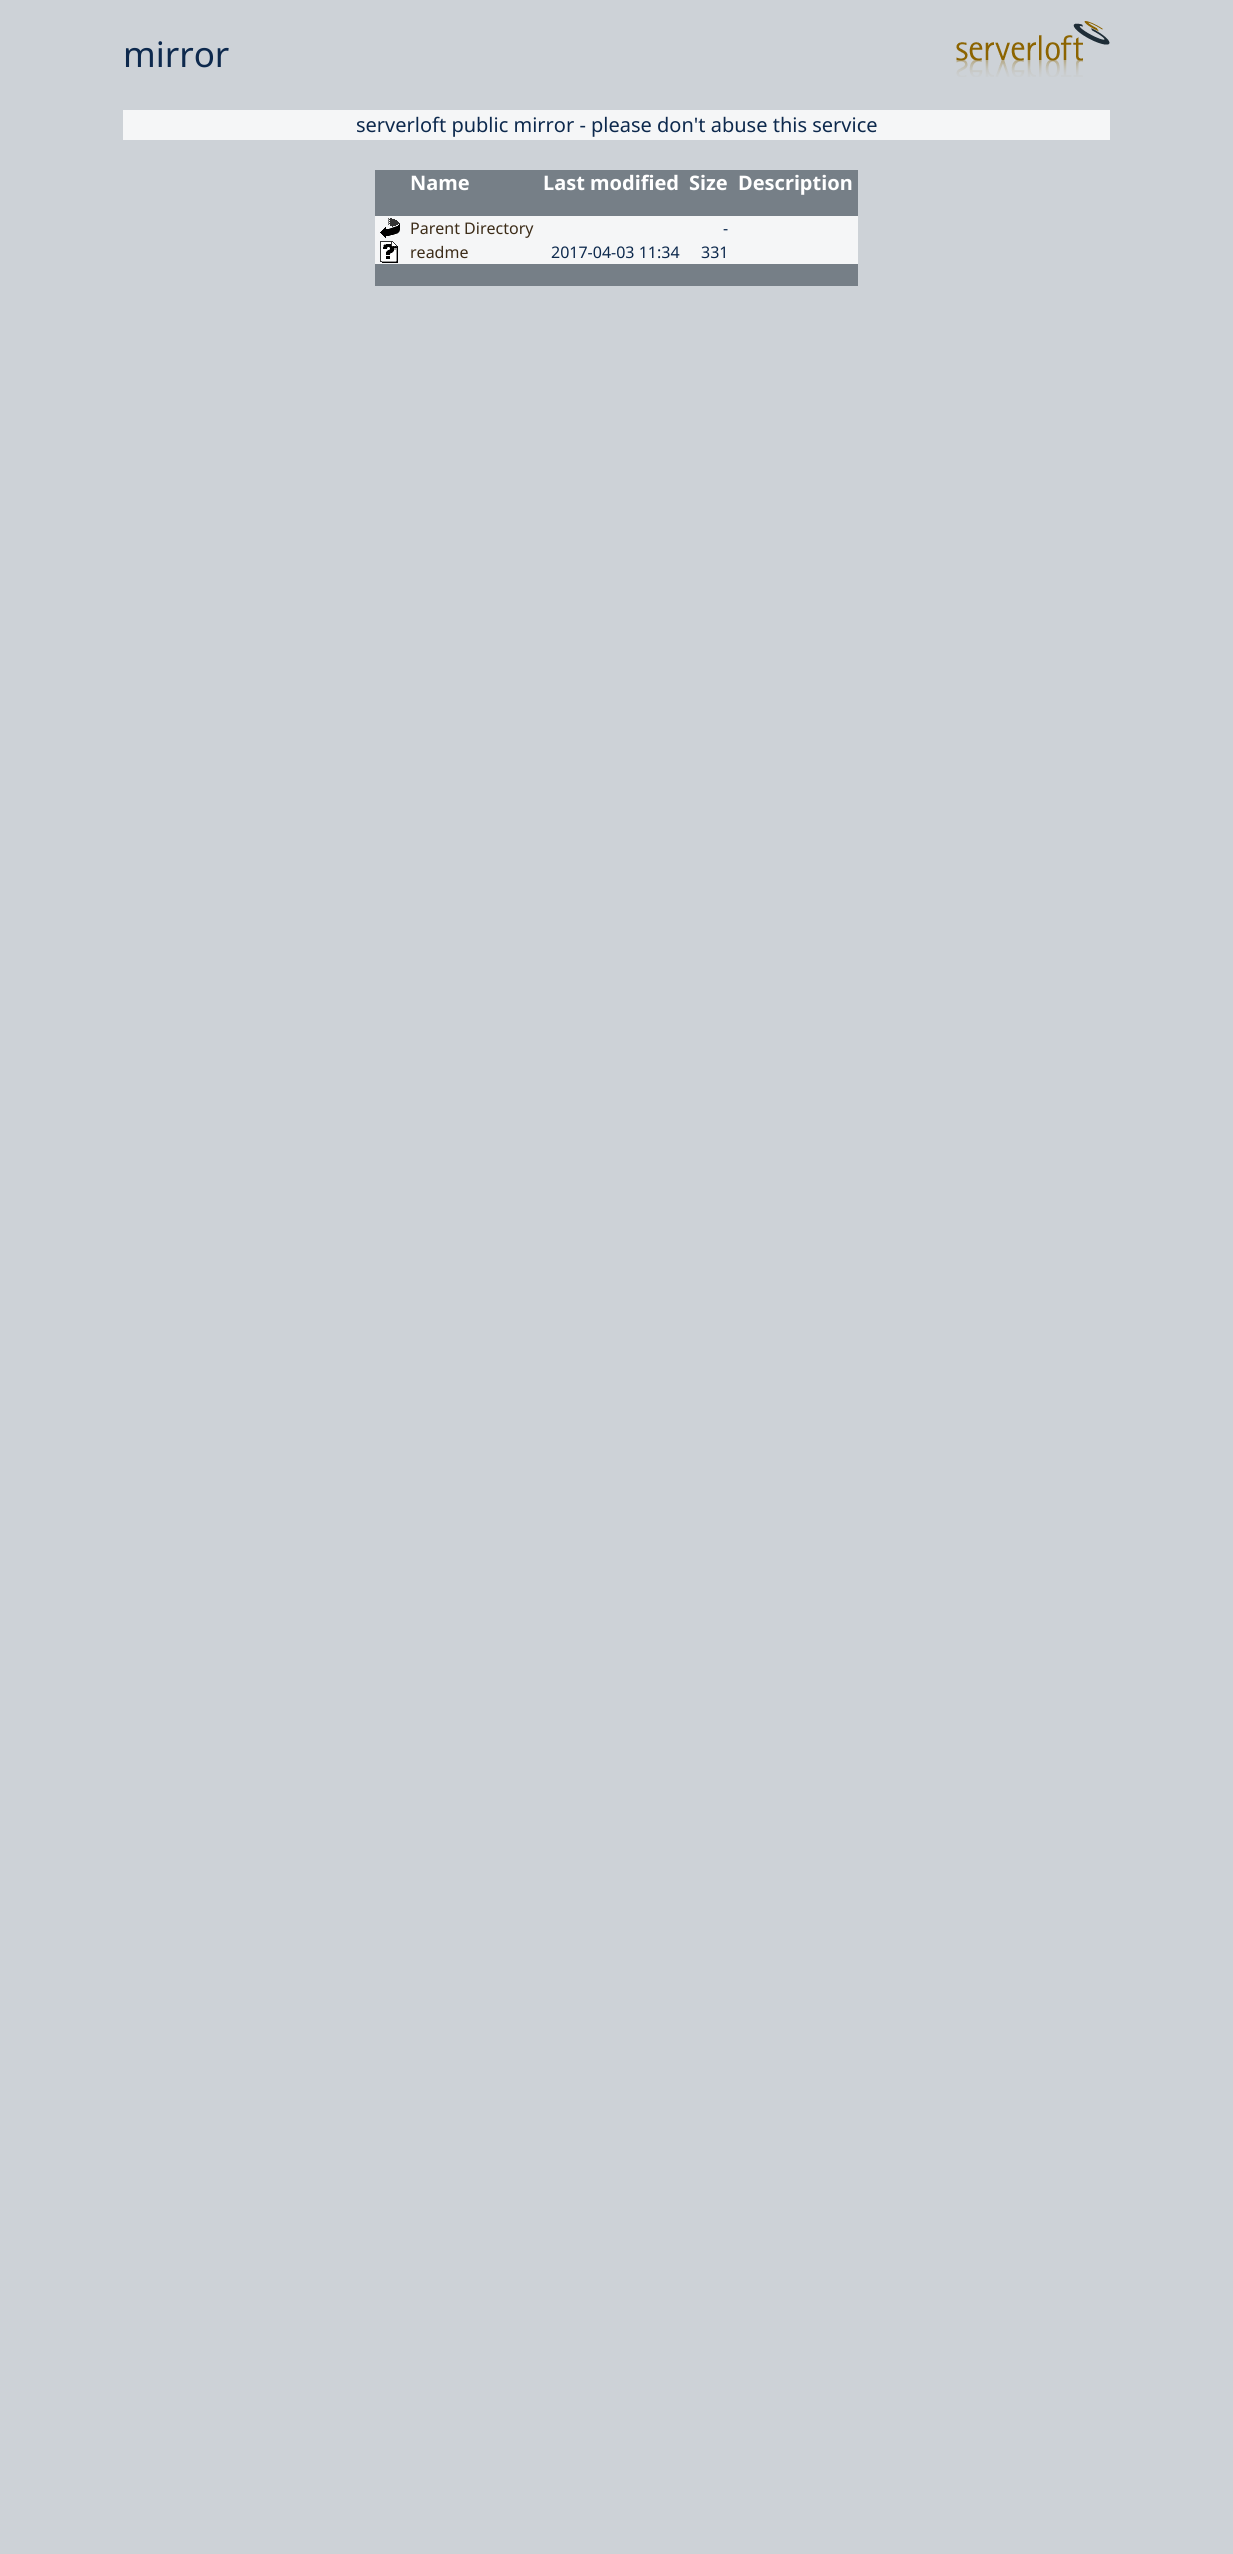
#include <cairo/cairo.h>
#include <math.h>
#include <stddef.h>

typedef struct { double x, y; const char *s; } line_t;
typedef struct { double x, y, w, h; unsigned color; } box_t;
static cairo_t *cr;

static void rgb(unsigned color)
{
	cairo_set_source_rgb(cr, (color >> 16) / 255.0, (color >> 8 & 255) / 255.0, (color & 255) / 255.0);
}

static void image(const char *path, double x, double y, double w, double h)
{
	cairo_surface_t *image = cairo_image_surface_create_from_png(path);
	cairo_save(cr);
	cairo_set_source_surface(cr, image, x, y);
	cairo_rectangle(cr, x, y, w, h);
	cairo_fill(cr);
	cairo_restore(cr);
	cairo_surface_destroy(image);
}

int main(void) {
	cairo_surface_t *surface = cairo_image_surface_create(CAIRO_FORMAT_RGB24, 1233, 2554);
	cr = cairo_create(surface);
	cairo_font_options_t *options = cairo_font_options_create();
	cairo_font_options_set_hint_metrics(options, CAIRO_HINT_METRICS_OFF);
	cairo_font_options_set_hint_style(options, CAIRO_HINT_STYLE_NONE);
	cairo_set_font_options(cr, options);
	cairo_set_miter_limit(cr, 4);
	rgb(0xcdd2d7);
	cairo_paint(cr);
	image("img/1.png", 956, 21, 154, 56);
	{
		static const box_t items[] = {
			{123, 110, 987, 30, 0xf5f6f7},
			{375, 170, 483, 46, 0x767f87},
			{375, 216, 483, 24, 0xf5f6f7},
		};
		for (size_t i = 0; i < sizeof items / sizeof *items; i++) {
			rgb(items[i].color);
			cairo_rectangle(cr, items[i].x, items[i].y, items[i].w, items[i].h);
			cairo_fill(cr);
		}
	}
	image("img/2.png", 380, 218, 20, 20);
	cairo_rectangle(cr, 375, 240, 483, 24);
	cairo_fill(cr);
	image("img/3.png", 380, 241, 18, 22);
	rgb(0x767f87);
	cairo_rectangle(cr, 375, 264, 483, 22);
	cairo_fill(cr);
	cairo_select_font_face(cr, "Noto Sans", CAIRO_FONT_SLANT_NORMAL, CAIRO_FONT_WEIGHT_NORMAL);
	cairo_set_font_size(cr, 35);
	rgb(0x0d294d);
	cairo_move_to(cr, 123, 67);
	cairo_show_text(cr, "mirror");
	cairo_set_font_size(cr, 20);
	cairo_move_to(cr, 356, 132);
	cairo_show_text(cr, "serverloft public mirror - please don't abuse this service");
	cairo_select_font_face(cr, "Noto Sans", CAIRO_FONT_SLANT_NORMAL, CAIRO_FONT_WEIGHT_BOLD);
	rgb(0xffffff);
	{
		static const line_t items[] = {
			{410, 190, "Name"},
			{543, 190, "Last modified"},
			{689, 190, "Size"},
			{738, 190, "Description"},
		};
		for (size_t i = 0; i < sizeof items / sizeof *items; i++) {
			cairo_move_to(cr, items[i].x, items[i].y);
			cairo_show_text(cr, items[i].s);
		}
	}
	cairo_select_font_face(cr, "Noto Sans", CAIRO_FONT_SLANT_NORMAL, CAIRO_FONT_WEIGHT_NORMAL);
	cairo_set_font_size(cr, 16);
	rgb(0x3c2c18);
	cairo_move_to(cr, 410, 234);
	cairo_show_text(cr, "Parent Directory");
	rgb(0x0d294d);
	cairo_move_to(cr, 723, 234);
	cairo_show_text(cr, "-");
	rgb(0x3c2c18);
	cairo_move_to(cr, 410, 258);
	cairo_show_text(cr, "readme");
	rgb(0x0d294d);
	cairo_move_to(cr, 551, 258);
	cairo_show_text(cr, "2017-04-03 11:34");
	cairo_move_to(cr, 701, 258);
	cairo_show_text(cr, "331");
	cairo_surface_write_to_png(surface, "page.png");
	cairo_font_options_destroy(options);
	cairo_destroy(cr);
	cairo_surface_destroy(surface);
	return 0;
}
